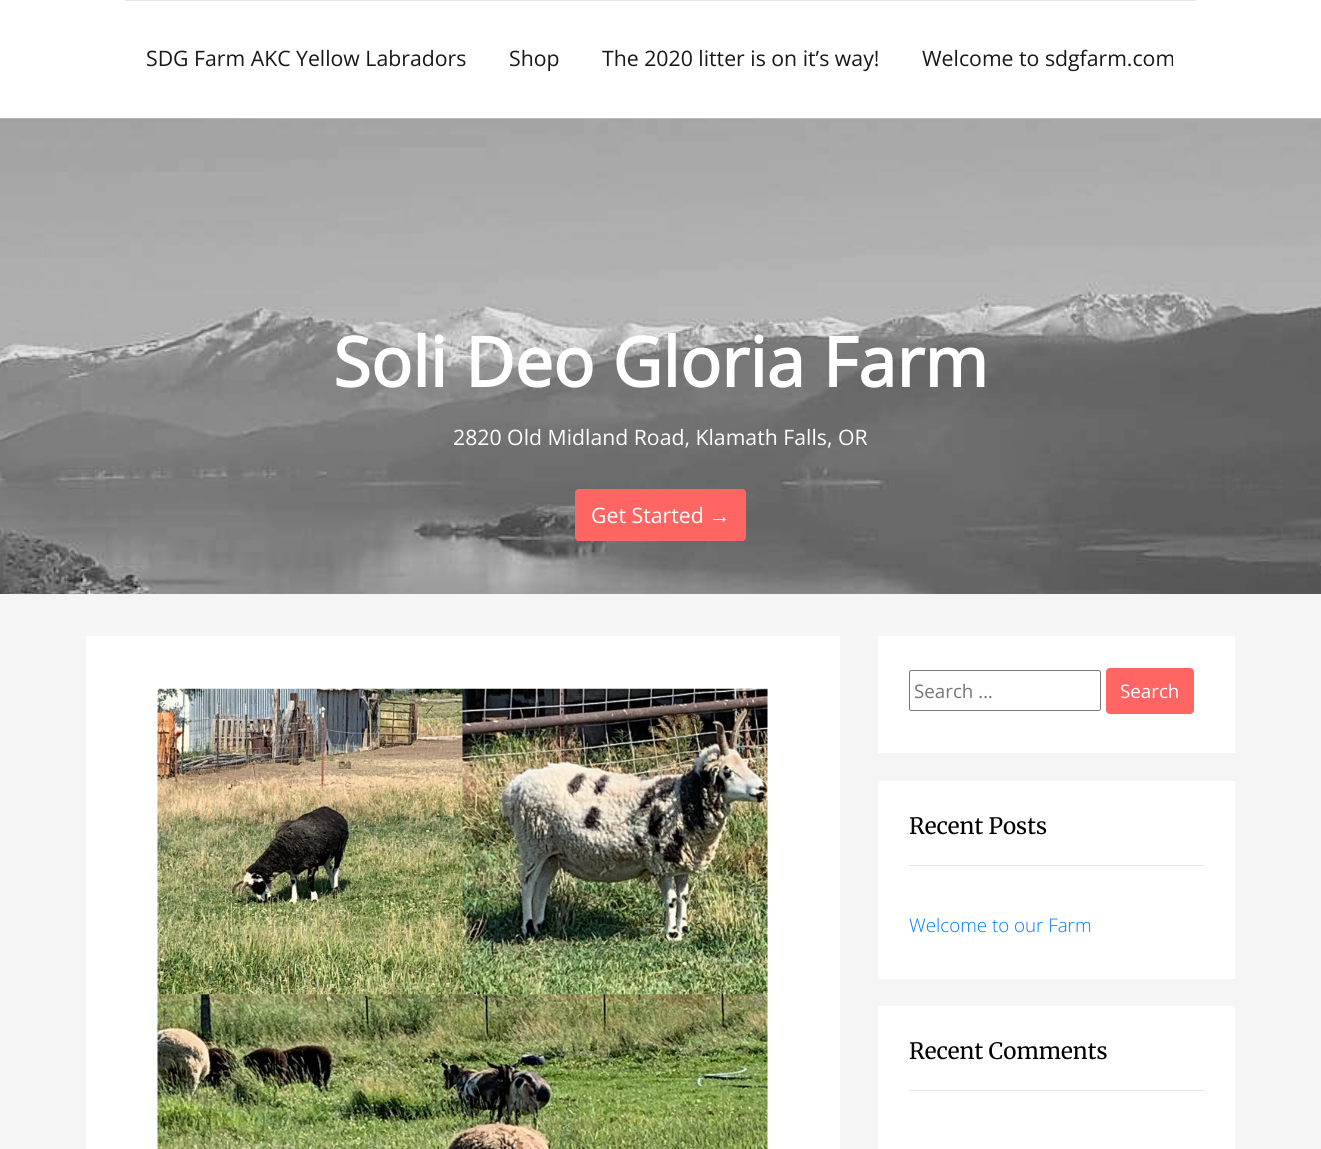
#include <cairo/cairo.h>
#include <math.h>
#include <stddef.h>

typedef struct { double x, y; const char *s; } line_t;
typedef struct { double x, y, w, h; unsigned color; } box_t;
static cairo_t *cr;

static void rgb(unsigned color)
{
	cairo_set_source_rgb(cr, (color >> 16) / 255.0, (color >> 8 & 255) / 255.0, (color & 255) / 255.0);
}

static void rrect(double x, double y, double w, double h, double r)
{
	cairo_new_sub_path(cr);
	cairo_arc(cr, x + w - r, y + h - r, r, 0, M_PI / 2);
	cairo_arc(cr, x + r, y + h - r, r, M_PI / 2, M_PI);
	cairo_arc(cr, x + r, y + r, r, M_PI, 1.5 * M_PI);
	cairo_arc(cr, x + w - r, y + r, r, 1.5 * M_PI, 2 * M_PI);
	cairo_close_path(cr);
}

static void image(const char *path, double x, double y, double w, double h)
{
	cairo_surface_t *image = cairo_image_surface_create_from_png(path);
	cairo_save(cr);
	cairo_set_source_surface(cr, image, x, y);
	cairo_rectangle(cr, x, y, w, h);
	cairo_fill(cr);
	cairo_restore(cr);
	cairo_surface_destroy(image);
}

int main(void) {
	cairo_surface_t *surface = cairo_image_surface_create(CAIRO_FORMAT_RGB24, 1321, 1149);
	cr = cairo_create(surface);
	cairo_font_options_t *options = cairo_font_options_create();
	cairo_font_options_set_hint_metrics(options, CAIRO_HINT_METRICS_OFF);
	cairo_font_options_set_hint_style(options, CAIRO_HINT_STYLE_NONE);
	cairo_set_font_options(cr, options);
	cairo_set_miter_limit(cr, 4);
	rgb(0xf5f5f5);
	cairo_paint(cr);
	rgb(0xffffff);
	cairo_rectangle(cr, 0, 0, 1321, 118);
	cairo_fill(cr);
	rgb(0xe6e6e6);
	cairo_rectangle(cr, 125, 0, 1071, 1);
	cairo_fill(cr);
	image("img/1.png", 0, 118, 1321, 476);
	rgb(0xff6663);
	rrect(575, 489, 171, 52, 4);
	cairo_fill(cr);
	rgb(0xffffff);
	cairo_rectangle(cr, 86, 636, 754, 513);
	cairo_fill(cr);
	image("img/2.png", 157, 688, 611, 461);
	cairo_rectangle(cr, 878, 636, 357, 117);
	cairo_fill(cr);
	rrect(909.5, 670.5, 191, 40, 2);
	rgb(0x767676);
	cairo_set_line_width(cr, 1);
	cairo_stroke(cr);
	rgb(0xff6663);
	rrect(1106, 668, 88, 46, 4);
	cairo_fill(cr);
	{
		static const box_t items[] = {
			{878, 781, 357, 198, 0xffffff},
			{909, 865, 295, 1, 0xe6e6e6},
			{878, 1006, 357, 143, 0xffffff},
			{909, 1090, 295, 1, 0xe6e6e6},
		};
		for (size_t i = 0; i < sizeof items / sizeof *items; i++) {
			rgb(items[i].color);
			cairo_rectangle(cr, items[i].x, items[i].y, items[i].w, items[i].h);
			cairo_fill(cr);
		}
	}
	cairo_select_font_face(cr, "Open Sans", CAIRO_FONT_SLANT_NORMAL, CAIRO_FONT_WEIGHT_NORMAL);
	cairo_set_font_size(cr, 21.25);
	rgb(0x181818);
	{
		static const line_t items[] = {
			{146, 66, "SDG Farm AKC Yellow Labradors"},
			{509, 66, "Shop"},
			{602, 66, "The 2020 litter is on it’s way!"},
			{922, 66, "Welcome to sdgfarm.com"},
		};
		for (size_t i = 0; i < sizeof items / sizeof *items; i++) {
			cairo_move_to(cr, items[i].x, items[i].y);
			cairo_show_text(cr, items[i].s);
		}
	}
	cairo_select_font_face(cr, "Open Sans", CAIRO_FONT_SLANT_NORMAL, CAIRO_FONT_WEIGHT_BOLD);
	cairo_set_font_size(cr, 68.75);
	rgb(0xffffff);
	cairo_move_to(cr, 333, 387);
	cairo_show_text(cr, "Soli Deo Gloria Farm");
	cairo_select_font_face(cr, "Open Sans", CAIRO_FONT_SLANT_NORMAL, CAIRO_FONT_WEIGHT_NORMAL);
	cairo_set_font_size(cr, 21.25);
	cairo_move_to(cr, 453, 445);
	cairo_show_text(cr, "2820 Old Midland Road, Klamath Falls, OR");
	cairo_move_to(cr, 591, 523);
	cairo_show_text(cr, "Get Started");
	cairo_select_font_face(cr, "Liberation Sans", CAIRO_FONT_SLANT_NORMAL, CAIRO_FONT_WEIGHT_NORMAL);
	cairo_move_to(cr, 709, 523);
	cairo_show_text(cr, "→");
	cairo_select_font_face(cr, "Open Sans", CAIRO_FONT_SLANT_NORMAL, CAIRO_FONT_WEIGHT_NORMAL);
	cairo_set_font_size(cr, 18.75);
	rgb(0x757575);
	cairo_move_to(cr, 914, 698);
	cairo_show_text(cr, "Search …");
	rgb(0xffffff);
	cairo_move_to(cr, 1120, 698);
	cairo_show_text(cr, "Search");
	cairo_select_font_face(cr, "Merriweather Light", CAIRO_FONT_SLANT_NORMAL, CAIRO_FONT_WEIGHT_NORMAL);
	cairo_set_font_size(cr, 22.5);
	rgb(0x000000);
	cairo_move_to(cr, 909, 834);
	cairo_show_text(cr, "Recent Posts");
	cairo_select_font_face(cr, "Open Sans Light", CAIRO_FONT_SLANT_NORMAL, CAIRO_FONT_WEIGHT_NORMAL);
	cairo_set_font_size(cr, 18.75);
	rgb(0x007bff);
	cairo_move_to(cr, 909, 932);
	cairo_show_text(cr, "Welcome to our Farm");
	cairo_select_font_face(cr, "Merriweather Light", CAIRO_FONT_SLANT_NORMAL, CAIRO_FONT_WEIGHT_NORMAL);
	cairo_set_font_size(cr, 22.5);
	rgb(0x000000);
	cairo_move_to(cr, 909, 1059);
	cairo_show_text(cr, "Recent Comments");
	cairo_surface_write_to_png(surface, "page.png");
	cairo_font_options_destroy(options);
	cairo_destroy(cr);
	cairo_surface_destroy(surface);
	return 0;
}
